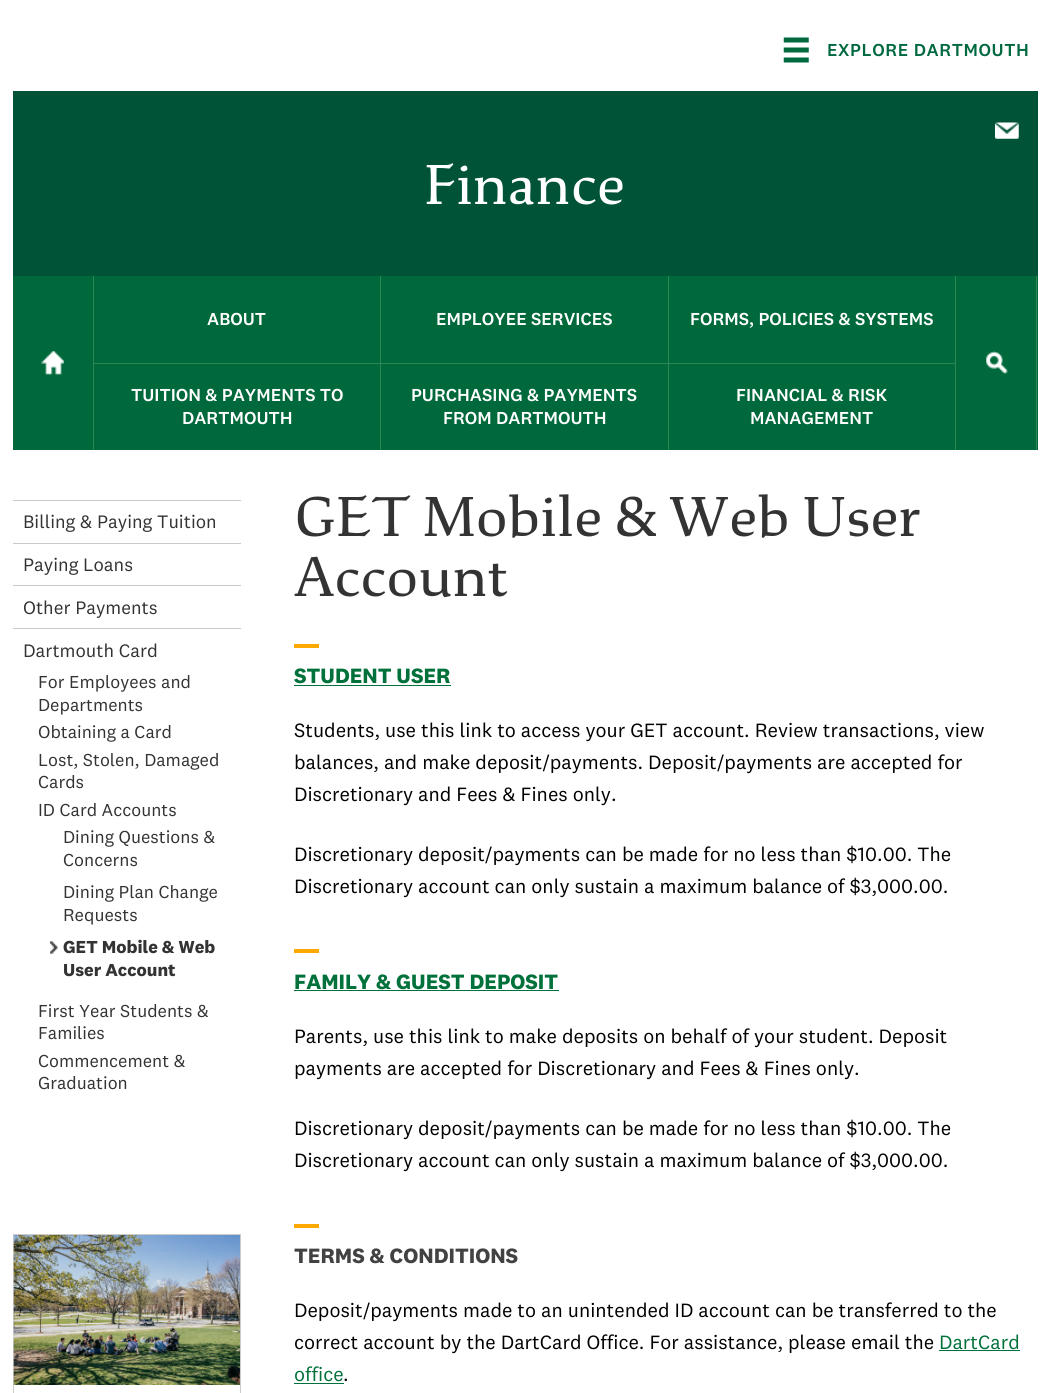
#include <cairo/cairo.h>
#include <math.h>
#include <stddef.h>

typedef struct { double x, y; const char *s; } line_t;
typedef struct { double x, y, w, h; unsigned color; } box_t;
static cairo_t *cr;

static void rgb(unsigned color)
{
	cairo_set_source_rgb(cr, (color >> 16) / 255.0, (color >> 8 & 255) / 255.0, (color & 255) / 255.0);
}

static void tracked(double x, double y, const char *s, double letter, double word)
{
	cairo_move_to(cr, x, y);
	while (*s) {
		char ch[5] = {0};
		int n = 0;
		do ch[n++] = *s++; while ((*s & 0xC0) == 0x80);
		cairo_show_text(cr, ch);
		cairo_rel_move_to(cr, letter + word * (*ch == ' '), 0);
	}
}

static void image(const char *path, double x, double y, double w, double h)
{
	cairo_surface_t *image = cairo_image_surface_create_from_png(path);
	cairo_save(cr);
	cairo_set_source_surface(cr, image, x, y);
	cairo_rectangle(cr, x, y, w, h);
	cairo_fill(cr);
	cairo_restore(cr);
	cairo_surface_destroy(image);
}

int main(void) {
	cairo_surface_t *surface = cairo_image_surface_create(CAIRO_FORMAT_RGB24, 1050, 1393);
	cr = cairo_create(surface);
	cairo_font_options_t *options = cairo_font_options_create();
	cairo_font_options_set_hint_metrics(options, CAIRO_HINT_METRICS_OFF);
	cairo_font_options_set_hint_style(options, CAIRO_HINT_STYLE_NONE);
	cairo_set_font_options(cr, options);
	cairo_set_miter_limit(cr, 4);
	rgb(0xffffff);
	cairo_paint(cr);
	image("img/1.png", 783, 37, 26, 26);
	rgb(0x005336);
	cairo_rectangle(cr, 13, 91, 1025, 185);
	cairo_fill(cr);
	image("img/2.png", 995, 122, 24, 17);
	rgb(0x00693c);
	cairo_rectangle(cr, 13, 276, 1025, 174);
	cairo_fill(cr);
	rgb(0x2c8754);
	cairo_rectangle(cr, 93, 276, 1, 174);
	cairo_fill(cr);
	image("img/3.png", 41, 351, 23, 24);
	{
		static const box_t items[] = {
			{380, 276, 1, 174, 0x2c8754},
			{94, 363, 287, 1, 0x2c8754},
			{668, 276, 1, 174, 0x2c8754},
			{381, 363, 288, 1, 0x2c8754},
			{955, 276, 1, 174, 0x2c8754},
			{669, 363, 287, 1, 0x2c8754},
			{1036, 276, 1, 174, 0x2c8754},
		};
		for (size_t i = 0; i < sizeof items / sizeof *items; i++) {
			rgb(items[i].color);
			cairo_rectangle(cr, items[i].x, items[i].y, items[i].w, items[i].h);
			cairo_fill(cr);
		}
	}
	image("img/4.png", 986, 351, 22, 23);
	{
		static const box_t items[] = {
			{13, 500, 228, 1, 0xc9c9c9},
			{13, 543, 228, 1, 0xc9c9c9},
			{13, 585, 228, 1, 0xc9c9c9},
			{13, 628, 228, 1, 0xc9c9c9},
		};
		for (size_t i = 0; i < sizeof items / sizeof *items; i++) {
			rgb(items[i].color);
			cairo_rectangle(cr, items[i].x, items[i].y, items[i].w, items[i].h);
			cairo_fill(cr);
		}
	}
	image("img/5.png", 50, 941, 8, 13);
	cairo_rectangle(cr, 13.5, 1234.5, 227, 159);
	rgb(0xcbcbcb);
	cairo_set_line_width(cr, 1);
	cairo_stroke(cr);
	image("img/6.png", 13, 1235, 227, 150);
	{
		static const box_t items[] = {
			{294, 644, 25, 4, 0xffa800},
			{294, 685, 157, 1, 0x00713a},
			{294, 949, 25, 4, 0xffa800},
			{294, 990, 265, 1, 0x00713a},
			{294, 1224, 25, 4, 0xffa800},
			{939, 1350, 81, 1, 0x00713a},
			{294, 1383, 50, 1, 0x00713a},
		};
		for (size_t i = 0; i < sizeof items / sizeof *items; i++) {
			rgb(items[i].color);
			cairo_rectangle(cr, items[i].x, items[i].y, items[i].w, items[i].h);
			cairo_fill(cr);
		}
	}
	cairo_select_font_face(cr, "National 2 Medium", CAIRO_FONT_SLANT_NORMAL, CAIRO_FONT_WEIGHT_NORMAL);
	cairo_set_font_size(cr, 18);
	rgb(0x00693f);
	tracked(827, 56, "EXPLORE DARTMOUTH", 0.6, 0);
	cairo_select_font_face(cr, "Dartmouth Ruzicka", CAIRO_FONT_SLANT_NORMAL, CAIRO_FONT_WEIGHT_NORMAL);
	cairo_set_font_size(cr, 60);
	rgb(0xffffff);
	cairo_move_to(cr, 424, 204);
	cairo_show_text(cr, "Finance");
	cairo_select_font_face(cr, "National 2 Medium", CAIRO_FONT_SLANT_NORMAL, CAIRO_FONT_WEIGHT_NORMAL);
	cairo_set_font_size(cr, 18);
	{
		static const line_t items[] = {
			{207, 325, "ABOUT"},
			{436, 325, "EMPLOYEE SERVICES"},
			{690, 325, "FORMS, POLICIES & SYSTEMS"},
			{131, 401, "TUITION & PAYMENTS TO"},
			{182, 424, "DARTMOUTH"},
			{411, 401, "PURCHASING & PAYMENTS"},
			{443, 424, "FROM DARTMOUTH"},
			{736, 401, "FINANCIAL & RISK"},
			{750, 424, "MANAGEMENT"},
		};
		for (size_t i = 0; i < sizeof items / sizeof *items; i++) {
			cairo_move_to(cr, items[i].x, items[i].y);
			cairo_show_text(cr, items[i].s);
		}
	}
	cairo_select_font_face(cr, "National 2", CAIRO_FONT_SLANT_NORMAL, CAIRO_FONT_WEIGHT_NORMAL);
	cairo_set_font_size(cr, 18.75);
	rgb(0x333333);
	{
		static const line_t items[] = {
			{23, 528, "Billing & Paying Tuition"},
			{23, 571, "Paying Loans"},
			{23, 614, "Other Payments"},
			{23, 657, "Dartmouth Card"},
		};
		for (size_t i = 0; i < sizeof items / sizeof *items; i++) {
			cairo_move_to(cr, items[i].x, items[i].y);
			cairo_show_text(cr, items[i].s);
		}
	}
	cairo_set_font_size(cr, 18);
	{
		static const line_t items[] = {
			{38, 688, "For Employees and"},
			{38, 711, "Departments"},
			{38, 738, "Obtaining a Card"},
			{38, 766, "Lost, Stolen, Damaged"},
			{38, 788, "Cards"},
			{38, 816, "ID Card Accounts"},
			{63, 843, "Dining Questions &"},
			{63, 866, "Concerns"},
			{63, 898, "Dining Plan Change"},
			{63, 921, "Requests"},
		};
		for (size_t i = 0; i < sizeof items / sizeof *items; i++) {
			cairo_move_to(cr, items[i].x, items[i].y);
			cairo_show_text(cr, items[i].s);
		}
	}
	cairo_select_font_face(cr, "National 2", CAIRO_FONT_SLANT_NORMAL, CAIRO_FONT_WEIGHT_BOLD);
	cairo_move_to(cr, 63, 953);
	cairo_show_text(cr, "GET Mobile & Web");
	cairo_move_to(cr, 63, 976);
	cairo_show_text(cr, "User Account");
	cairo_select_font_face(cr, "National 2", CAIRO_FONT_SLANT_NORMAL, CAIRO_FONT_WEIGHT_NORMAL);
	{
		static const line_t items[] = {
			{38, 1017, "First Year Students &"},
			{38, 1039, "Families"},
			{38, 1067, "Commencement &"},
			{38, 1089, "Graduation"},
		};
		for (size_t i = 0; i < sizeof items / sizeof *items; i++) {
			cairo_move_to(cr, items[i].x, items[i].y);
			cairo_show_text(cr, items[i].s);
		}
	}
	cairo_select_font_face(cr, "Dartmouth Ruzicka", CAIRO_FONT_SLANT_NORMAL, CAIRO_FONT_WEIGHT_NORMAL);
	cairo_set_font_size(cr, 60);
	cairo_move_to(cr, 294, 536);
	cairo_show_text(cr, "GET Mobile & Web User");
	cairo_move_to(cr, 294, 596);
	cairo_show_text(cr, "Account");
	cairo_select_font_face(cr, "National 2", CAIRO_FONT_SLANT_NORMAL, CAIRO_FONT_WEIGHT_BOLD);
	cairo_set_font_size(cr, 21.5);
	rgb(0x00713a);
	cairo_move_to(cr, 294, 683);
	cairo_show_text(cr, "STUDENT USER");
	cairo_select_font_face(cr, "National 2", CAIRO_FONT_SLANT_NORMAL, CAIRO_FONT_WEIGHT_NORMAL);
	cairo_set_font_size(cr, 20);
	rgb(0x000000);
	{
		static const line_t items[] = {
			{294, 737, "Students, use this link to access your GET account. Review transactions, view"},
			{294, 769, "balances, and make deposit/payments. Deposit/payments are accepted for"},
			{294, 801, "Discretionary and Fees & Fines only."},
			{294, 861, "Discretionary deposit/payments can be made for no less than $10.00. The"},
			{294, 893, "Discretionary account can only sustain a maximum balance of $3,000.00."},
		};
		for (size_t i = 0; i < sizeof items / sizeof *items; i++) {
			cairo_move_to(cr, items[i].x, items[i].y);
			cairo_show_text(cr, items[i].s);
		}
	}
	cairo_select_font_face(cr, "National 2", CAIRO_FONT_SLANT_NORMAL, CAIRO_FONT_WEIGHT_BOLD);
	cairo_set_font_size(cr, 21.5);
	rgb(0x00713a);
	cairo_move_to(cr, 294, 989);
	cairo_show_text(cr, "FAMILY & GUEST DEPOSIT");
	cairo_select_font_face(cr, "National 2", CAIRO_FONT_SLANT_NORMAL, CAIRO_FONT_WEIGHT_NORMAL);
	cairo_set_font_size(cr, 20);
	rgb(0x000000);
	{
		static const line_t items[] = {
			{294, 1043, "Parents, use this link to make deposits on behalf of your student. Deposit"},
			{294, 1075, "payments are accepted for Discretionary and Fees & Fines only."},
			{294, 1135, "Discretionary deposit/payments can be made for no less than $10.00. The"},
			{294, 1167, "Discretionary account can only sustain a maximum balance of $3,000.00."},
		};
		for (size_t i = 0; i < sizeof items / sizeof *items; i++) {
			cairo_move_to(cr, items[i].x, items[i].y);
			cairo_show_text(cr, items[i].s);
		}
	}
	cairo_select_font_face(cr, "National 2", CAIRO_FONT_SLANT_NORMAL, CAIRO_FONT_WEIGHT_BOLD);
	cairo_set_font_size(cr, 21.5);
	rgb(0x424242);
	cairo_move_to(cr, 294, 1263);
	cairo_show_text(cr, "TERMS & CONDITIONS");
	cairo_select_font_face(cr, "National 2", CAIRO_FONT_SLANT_NORMAL, CAIRO_FONT_WEIGHT_NORMAL);
	cairo_set_font_size(cr, 20);
	rgb(0x000000);
	cairo_move_to(cr, 294, 1317);
	cairo_show_text(cr, "Deposit/payments made to an unintended ID account can be transferred to the");
	cairo_move_to(cr, 294, 1349);
	cairo_show_text(cr, "correct account by the DartCard Office. For assistance, please email the");
	rgb(0x00713a);
	cairo_move_to(cr, 939, 1349);
	cairo_show_text(cr, "DartCard");
	cairo_move_to(cr, 294, 1381);
	cairo_show_text(cr, "office");
	rgb(0x000000);
	cairo_move_to(cr, 343, 1381);
	cairo_show_text(cr, ".");
	cairo_surface_write_to_png(surface, "page.png");
	cairo_font_options_destroy(options);
	cairo_destroy(cr);
	cairo_surface_destroy(surface);
	return 0;
}
